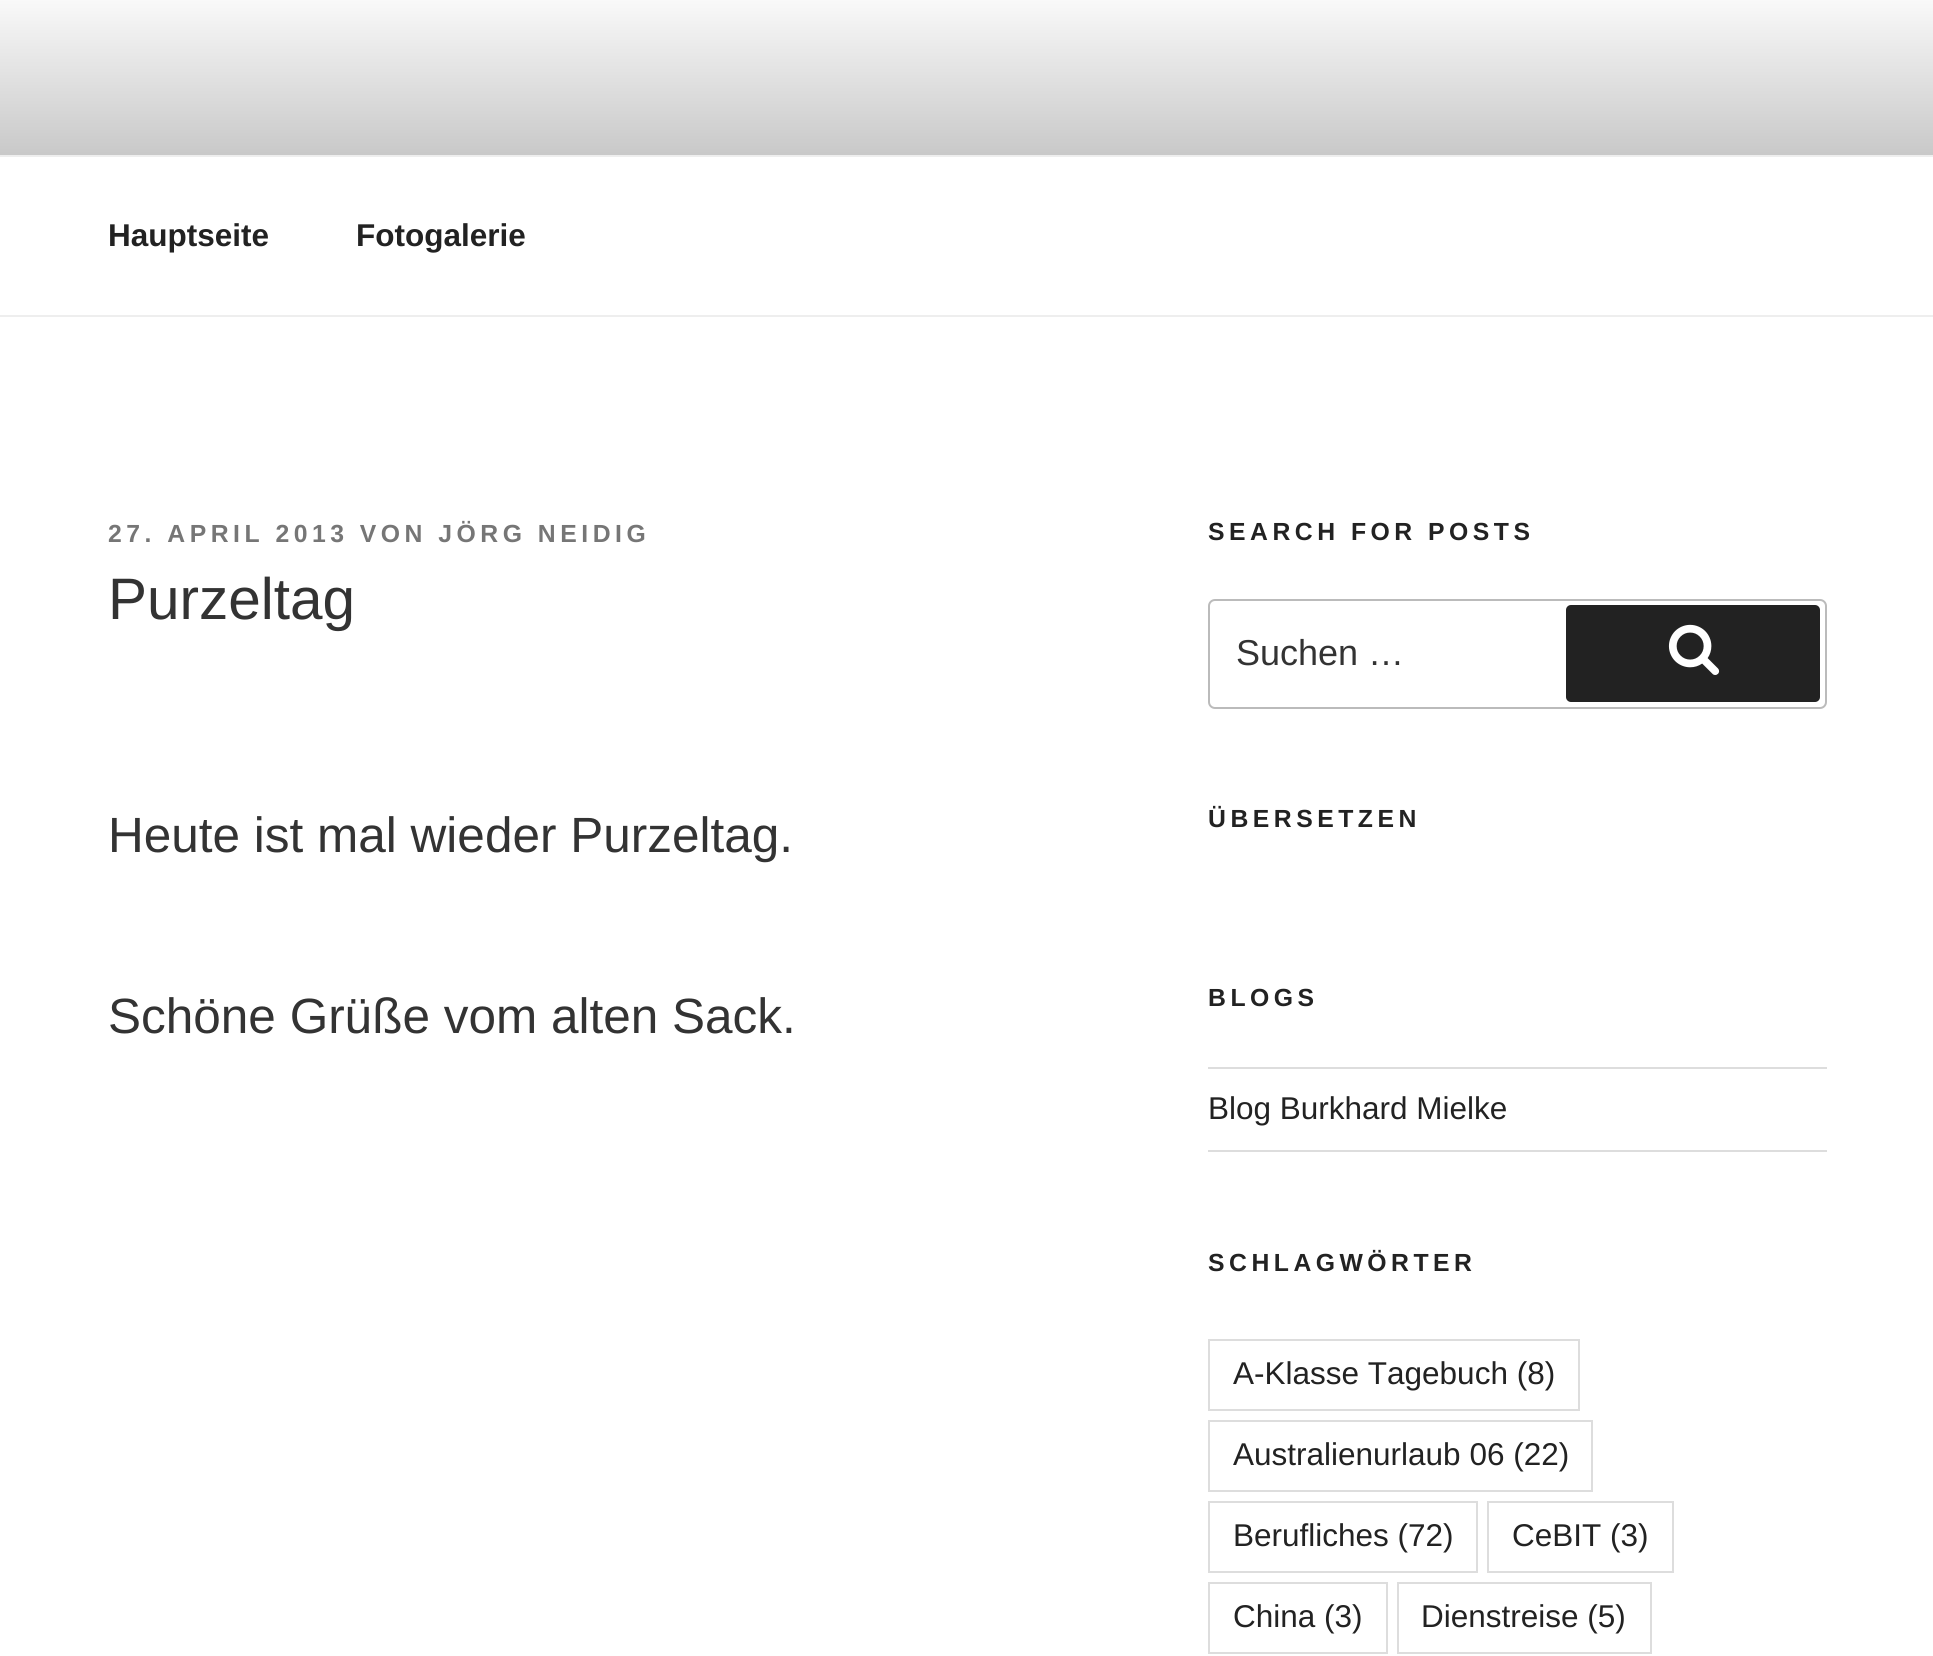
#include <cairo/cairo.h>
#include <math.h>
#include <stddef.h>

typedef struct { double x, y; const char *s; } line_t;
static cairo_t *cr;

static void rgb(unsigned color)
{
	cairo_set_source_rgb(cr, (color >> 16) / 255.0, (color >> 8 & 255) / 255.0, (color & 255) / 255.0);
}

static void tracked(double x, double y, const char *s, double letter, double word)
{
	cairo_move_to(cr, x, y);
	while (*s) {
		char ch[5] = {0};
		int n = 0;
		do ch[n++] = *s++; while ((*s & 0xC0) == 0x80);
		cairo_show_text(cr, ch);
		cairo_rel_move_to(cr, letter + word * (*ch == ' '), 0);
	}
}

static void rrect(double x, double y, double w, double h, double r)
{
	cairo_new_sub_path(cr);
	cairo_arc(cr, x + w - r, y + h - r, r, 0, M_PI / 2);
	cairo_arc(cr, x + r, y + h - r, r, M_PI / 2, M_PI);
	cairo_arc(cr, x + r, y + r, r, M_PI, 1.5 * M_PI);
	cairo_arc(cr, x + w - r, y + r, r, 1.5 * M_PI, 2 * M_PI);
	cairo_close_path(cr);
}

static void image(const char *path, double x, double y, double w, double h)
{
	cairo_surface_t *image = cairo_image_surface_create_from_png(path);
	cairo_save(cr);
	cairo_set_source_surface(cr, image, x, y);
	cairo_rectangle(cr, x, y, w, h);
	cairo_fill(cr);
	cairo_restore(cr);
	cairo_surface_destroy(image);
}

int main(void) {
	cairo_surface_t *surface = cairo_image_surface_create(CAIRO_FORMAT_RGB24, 1933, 1656);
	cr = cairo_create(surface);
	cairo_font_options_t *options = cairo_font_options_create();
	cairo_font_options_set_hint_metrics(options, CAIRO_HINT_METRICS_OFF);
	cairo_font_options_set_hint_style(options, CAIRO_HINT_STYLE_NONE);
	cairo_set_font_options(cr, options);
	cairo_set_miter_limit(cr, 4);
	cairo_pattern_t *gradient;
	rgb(0xffffff);
	cairo_paint(cr);
	gradient = cairo_pattern_create_linear(968, 0, 968, 317);
	cairo_pattern_add_color_stop_rgba(gradient, 0, 0.976, 0.976, 0.976, 1);
	cairo_pattern_add_color_stop_rgba(gradient, 0.75, 0.686, 0.686, 0.686, 1);
	cairo_pattern_add_color_stop_rgba(gradient, 1, 0.686, 0.686, 0.686, 1);
	cairo_set_source(cr, gradient);
	cairo_pattern_destroy(gradient);
	cairo_rectangle(cr, 0, 0, 1933, 155);
	cairo_fill(cr);
	rgb(0xeeeeee);
	cairo_rectangle(cr, 0, 155, 1933, 2);
	cairo_fill(cr);
	cairo_rectangle(cr, 0, 315, 1933, 2);
	cairo_fill(cr);
	rrect(1209, 600, 617, 108, 6);
	rgb(0xbbbbbb);
	cairo_stroke(cr);
	rgb(0x222222);
	rrect(1566, 605, 254, 97, 5);
	cairo_fill(cr);
	image("img/1.png", 1668, 624, 52, 51);
	rgb(0xdddddd);
	cairo_rectangle(cr, 1208, 1067, 619, 2);
	cairo_fill(cr);
	cairo_rectangle(cr, 1208, 1150, 619, 2);
	cairo_fill(cr);
	cairo_rectangle(cr, 1209, 1340, 370, 70);
	cairo_stroke(cr);
	cairo_rectangle(cr, 1209, 1421, 383, 70);
	cairo_stroke(cr);
	cairo_rectangle(cr, 1209, 1502, 268, 70);
	cairo_stroke(cr);
	cairo_rectangle(cr, 1488, 1502, 185, 70);
	cairo_stroke(cr);
	cairo_rectangle(cr, 1209, 1583, 178, 70);
	cairo_stroke(cr);
	cairo_rectangle(cr, 1398, 1583, 253, 70);
	cairo_stroke(cr);
	cairo_select_font_face(cr, "Liberation Sans", CAIRO_FONT_SLANT_NORMAL, CAIRO_FONT_WEIGHT_BOLD);
	cairo_set_font_size(cr, 31.5);
	rgb(0x222222);
	cairo_move_to(cr, 108, 246);
	cairo_show_text(cr, "Hauptseite");
	cairo_move_to(cr, 356, 246);
	cairo_show_text(cr, "Fotogalerie");
	cairo_set_font_size(cr, 24.75);
	rgb(0x767676);
	tracked(108, 542, "27. APRIL 2013 VON JÖRG NEIDIG", 4.5, 0);
	cairo_select_font_face(cr, "Liberation Sans", CAIRO_FONT_SLANT_NORMAL, CAIRO_FONT_WEIGHT_NORMAL);
	cairo_set_font_size(cr, 58.5);
	rgb(0x333333);
	cairo_move_to(cr, 108, 619);
	cairo_show_text(cr, "Purzeltag");
	cairo_set_font_size(cr, 49.5);
	cairo_move_to(cr, 108, 852);
	cairo_show_text(cr, "Heute ist mal wieder Purzeltag.");
	cairo_move_to(cr, 108, 1033);
	cairo_show_text(cr, "Schöne Grüße vom alten Sack.");
	cairo_select_font_face(cr, "Liberation Sans", CAIRO_FONT_SLANT_NORMAL, CAIRO_FONT_WEIGHT_BOLD);
	cairo_set_font_size(cr, 24.75);
	rgb(0x222222);
	tracked(1208, 540, "SEARCH FOR POSTS", 4.5, 0);
	cairo_select_font_face(cr, "Liberation Sans", CAIRO_FONT_SLANT_NORMAL, CAIRO_FONT_WEIGHT_NORMAL);
	cairo_set_font_size(cr, 36);
	rgb(0x333333);
	cairo_move_to(cr, 1236, 665);
	cairo_show_text(cr, "Suchen …");
	cairo_select_font_face(cr, "Liberation Sans", CAIRO_FONT_SLANT_NORMAL, CAIRO_FONT_WEIGHT_BOLD);
	cairo_set_font_size(cr, 24.75);
	rgb(0x222222);
	tracked(1208, 827, "ÜBERSETZEN", 4.5, 0);
	tracked(1208, 1006, "BLOGS", 4.5, 0);
	cairo_select_font_face(cr, "Liberation Sans", CAIRO_FONT_SLANT_NORMAL, CAIRO_FONT_WEIGHT_NORMAL);
	cairo_set_font_size(cr, 31.5);
	cairo_move_to(cr, 1208, 1119);
	cairo_show_text(cr, "Blog Burkhard Mielke");
	cairo_select_font_face(cr, "Liberation Sans", CAIRO_FONT_SLANT_NORMAL, CAIRO_FONT_WEIGHT_BOLD);
	cairo_set_font_size(cr, 24.75);
	tracked(1208, 1271, "SCHLAGWÖRTER", 4.5, 0);
	cairo_select_font_face(cr, "Liberation Sans", CAIRO_FONT_SLANT_NORMAL, CAIRO_FONT_WEIGHT_NORMAL);
	cairo_set_font_size(cr, 31.5);
	{
		static const line_t items[] = {
			{1233, 1384, "A-Klasse Tagebuch (8)"},
			{1233, 1465, "Australienurlaub 06 (22)"},
			{1233, 1546, "Berufliches (72)"},
			{1512, 1546, "CeBIT (3)"},
			{1233, 1627, "China (3)"},
			{1421, 1627, "Dienstreise (5)"},
		};
		for (size_t i = 0; i < sizeof items / sizeof *items; i++) {
			cairo_move_to(cr, items[i].x, items[i].y);
			cairo_show_text(cr, items[i].s);
		}
	}
	cairo_surface_write_to_png(surface, "page.png");
	cairo_font_options_destroy(options);
	cairo_destroy(cr);
	cairo_surface_destroy(surface);
	return 0;
}
